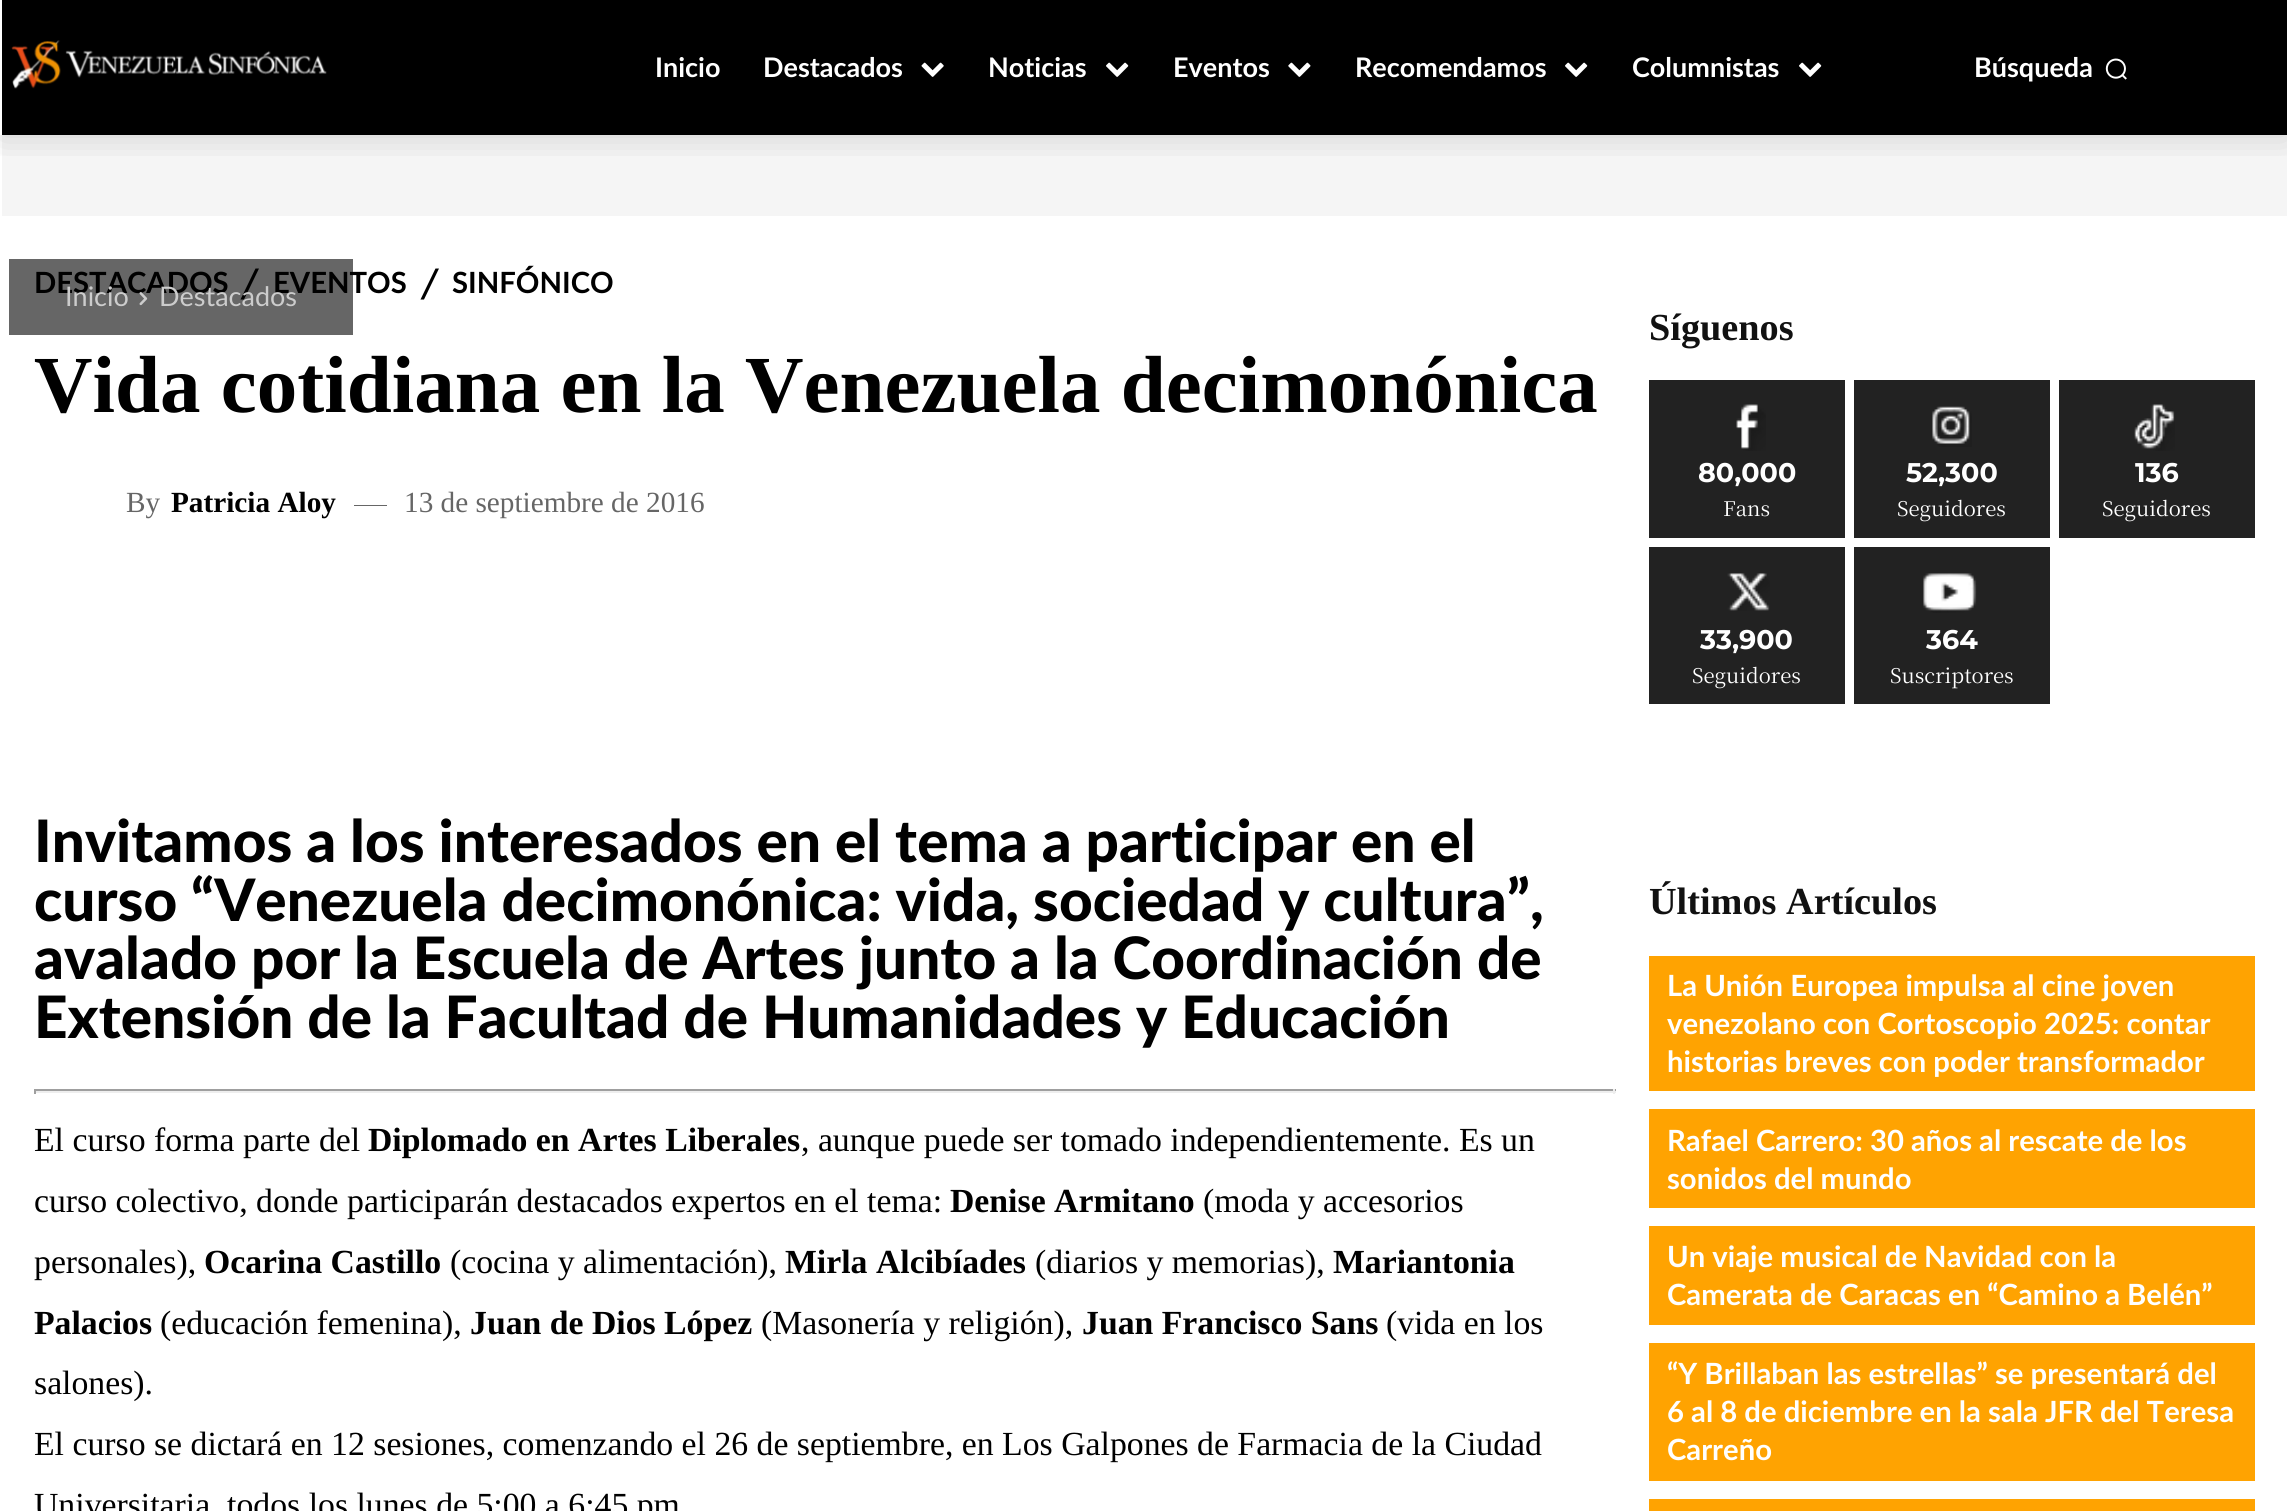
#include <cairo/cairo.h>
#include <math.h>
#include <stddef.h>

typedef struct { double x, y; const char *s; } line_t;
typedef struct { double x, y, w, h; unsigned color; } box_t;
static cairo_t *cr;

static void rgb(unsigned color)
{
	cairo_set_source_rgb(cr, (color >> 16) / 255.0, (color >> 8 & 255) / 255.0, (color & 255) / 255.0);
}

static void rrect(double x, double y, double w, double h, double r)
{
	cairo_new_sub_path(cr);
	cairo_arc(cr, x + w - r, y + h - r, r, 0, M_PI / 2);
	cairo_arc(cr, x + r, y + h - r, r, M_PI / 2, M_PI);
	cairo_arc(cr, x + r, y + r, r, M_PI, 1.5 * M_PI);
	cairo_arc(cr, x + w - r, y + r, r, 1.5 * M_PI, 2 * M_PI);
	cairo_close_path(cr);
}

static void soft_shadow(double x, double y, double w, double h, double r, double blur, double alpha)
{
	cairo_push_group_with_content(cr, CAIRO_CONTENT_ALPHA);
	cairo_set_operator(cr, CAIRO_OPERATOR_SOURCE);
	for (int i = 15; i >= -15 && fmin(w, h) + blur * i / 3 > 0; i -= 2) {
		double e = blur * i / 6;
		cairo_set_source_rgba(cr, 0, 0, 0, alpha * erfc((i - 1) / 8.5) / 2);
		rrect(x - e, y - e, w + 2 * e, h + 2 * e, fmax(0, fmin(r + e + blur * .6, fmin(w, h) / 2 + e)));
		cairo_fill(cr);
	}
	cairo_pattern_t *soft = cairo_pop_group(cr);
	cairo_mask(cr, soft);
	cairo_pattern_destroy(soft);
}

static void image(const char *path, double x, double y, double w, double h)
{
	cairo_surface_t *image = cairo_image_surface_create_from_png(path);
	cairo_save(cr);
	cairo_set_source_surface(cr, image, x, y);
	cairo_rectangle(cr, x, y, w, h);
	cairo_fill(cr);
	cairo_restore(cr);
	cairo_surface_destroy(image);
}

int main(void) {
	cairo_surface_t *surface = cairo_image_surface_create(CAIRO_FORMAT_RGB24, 2287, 1511);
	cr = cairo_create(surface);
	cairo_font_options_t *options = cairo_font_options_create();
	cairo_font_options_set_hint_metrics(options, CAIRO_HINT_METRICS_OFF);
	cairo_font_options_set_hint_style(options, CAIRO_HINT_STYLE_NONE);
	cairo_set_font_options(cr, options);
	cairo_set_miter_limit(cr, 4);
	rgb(0xffffff);
	cairo_paint(cr);
	rgb(0xf5f5f5);
	cairo_rectangle(cr, 2, 135, 2285, 81);
	cairo_fill(cr);
	cairo_save(cr);
	cairo_rectangle(cr, 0, 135, 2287, 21);
	cairo_clip(cr);
	rgb(0x000000);
	soft_shadow(0, 0, 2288, 135, 0, 18, 0.16);
	cairo_restore(cr);
	rgb(0x000000);
	cairo_rectangle(cr, 2, 0, 2285, 135);
	cairo_fill(cr);
	image("img/1.png", 11, 40, 316, 49);
	image("img/2.png", 921, 62, 23, 15);
	image("img/3.png", 1106, 62, 23, 15);
	image("img/4.png", 1288, 62, 23, 15);
	image("img/3.png", 1565, 62, 23, 15);
	image("img/3.png", 1799, 62, 23, 15);
	image("img/5.png", 2105, 58, 22, 22);
	cairo_new_path(cr);
	cairo_move_to(cr, 255.5, 268.5);
	cairo_line_to(cr, 240.5, 299.5);
	cairo_line_to(cr, 244, 299.5);
	cairo_line_to(cr, 259, 268.5);
	cairo_close_path(cr);
	cairo_fill(cr);
	cairo_new_path(cr);
	cairo_move_to(cr, 435.5, 268.5);
	cairo_line_to(cr, 420.5, 299.5);
	cairo_line_to(cr, 424, 299.5);
	cairo_line_to(cr, 439, 268.5);
	cairo_close_path(cr);
	cairo_fill(cr);
	{
		static const box_t items[] = {
			{354, 505, 33, 1, 0x666666},
			{34, 1089, 1582, 2, 0x9f9f9f},
			{1613, 1089, 2, 5, 0xeeeeee},
			{34, 1091, 1582, 2, 0xeeeeee},
			{34, 1089, 2, 5, 0x9f9f9f},
			{1649, 380, 196, 158, 0x222222},
		};
		for (size_t i = 0; i < sizeof items / sizeof *items; i++) {
			rgb(items[i].color);
			cairo_rectangle(cr, items[i].x, items[i].y, items[i].w, items[i].h);
			cairo_fill(cr);
		}
	}
	image("img/6.png", 1736, 404, 30, 47);
	cairo_rectangle(cr, 1854, 380, 196, 158);
	cairo_fill(cr);
	image("img/7.png", 1932, 406, 40, 41);
	cairo_rectangle(cr, 2059, 380, 196, 158);
	cairo_fill(cr);
	image("img/8.png", 2134, 404, 41, 47);
	cairo_rectangle(cr, 1649, 547, 196, 157);
	cairo_fill(cr);
	image("img/9.png", 1727, 573, 43, 38);
	cairo_rectangle(cr, 1854, 547, 196, 157);
	cairo_fill(cr);
	image("img/10.png", 1923, 573, 54, 40);
	{
		static const box_t items[] = {
			{1649, 956, 606, 135, 0xffa301},
			{1649, 1109, 606, 99, 0xffa301},
			{1649, 1226, 606, 99, 0xffa301},
			{1649, 1343, 606, 138, 0xffa301},
			{1649, 1499, 606, 12, 0xffa301},
		};
		for (size_t i = 0; i < sizeof items / sizeof *items; i++) {
			rgb(items[i].color);
			cairo_rectangle(cr, items[i].x, items[i].y, items[i].w, items[i].h);
			cairo_fill(cr);
		}
	}
	cairo_select_font_face(cr, "Lato", CAIRO_FONT_SLANT_NORMAL, CAIRO_FONT_WEIGHT_BOLD);
	cairo_set_font_size(cr, 27);
	rgb(0xffffff);
	{
		static const line_t items[] = {
			{655, 77, "Inicio"},
			{763, 77, "Destacados"},
			{988, 77, "Noticias"},
			{1173, 77, "Eventos"},
			{1355, 77, "Recomendamos"},
			{1632, 77, "Columnistas"},
			{1974, 77, "Búsqueda"},
		};
		for (size_t i = 0; i < sizeof items / sizeof *items; i++) {
			cairo_move_to(cr, items[i].x, items[i].y);
			cairo_show_text(cr, items[i].s);
		}
	}
	cairo_set_font_size(cr, 29.25);
	rgb(0x000000);
	{
		static const line_t items[] = {
			{34, 293, "DESTACADOS"},
			{273, 293, "EVENTOS"},
			{452, 293, "SINFÓNICO"},
		};
		for (size_t i = 0; i < sizeof items / sizeof *items; i++) {
			cairo_move_to(cr, items[i].x, items[i].y);
			cairo_show_text(cr, items[i].s);
		}
	}
	cairo_select_font_face(cr, "Liberation Serif", CAIRO_FONT_SLANT_NORMAL, CAIRO_FONT_WEIGHT_BOLD);
	cairo_set_font_size(cr, 81);
	cairo_move_to(cr, 34, 412);
	cairo_show_text(cr, "Vida cotidiana en la Venezuela decimonónica");
	cairo_select_font_face(cr, "Liberation Serif", CAIRO_FONT_SLANT_NORMAL, CAIRO_FONT_WEIGHT_NORMAL);
	cairo_set_font_size(cr, 29.25);
	rgb(0x666666);
	cairo_move_to(cr, 126, 512);
	cairo_show_text(cr, "By");
	cairo_select_font_face(cr, "Liberation Serif", CAIRO_FONT_SLANT_NORMAL, CAIRO_FONT_WEIGHT_BOLD);
	rgb(0x000000);
	cairo_move_to(cr, 171, 512);
	cairo_show_text(cr, "Patricia Aloy");
	cairo_select_font_face(cr, "Liberation Serif", CAIRO_FONT_SLANT_NORMAL, CAIRO_FONT_WEIGHT_NORMAL);
	rgb(0x666666);
	cairo_move_to(cr, 404, 512);
	cairo_show_text(cr, "13 de septiembre de 2016");
	cairo_select_font_face(cr, "Lato Black", CAIRO_FONT_SLANT_NORMAL, CAIRO_FONT_WEIGHT_NORMAL);
	cairo_set_font_size(cr, 58.5);
	rgb(0x000000);
	{
		static const line_t items[] = {
			{34, 862, "Invitamos a los interesados en el tema a participar en el"},
			{34, 921, "curso “Venezuela decimonónica: vida, sociedad y cultura”,"},
			{34, 979, "avalado por la Escuela de Artes junto a la Coordinación de"},
			{34, 1038, "Extensión de la Facultad de Humanidades y Educación"},
		};
		for (size_t i = 0; i < sizeof items / sizeof *items; i++) {
			cairo_move_to(cr, items[i].x, items[i].y);
			cairo_show_text(cr, items[i].s);
		}
	}
	cairo_select_font_face(cr, "Liberation Serif", CAIRO_FONT_SLANT_NORMAL, CAIRO_FONT_WEIGHT_NORMAL);
	cairo_set_font_size(cr, 33.75);
	cairo_move_to(cr, 34, 1151);
	cairo_show_text(cr, "El curso forma parte del");
	cairo_select_font_face(cr, "Liberation Serif", CAIRO_FONT_SLANT_NORMAL, CAIRO_FONT_WEIGHT_BOLD);
	cairo_move_to(cr, 368, 1151);
	cairo_show_text(cr, "Diplomado en Artes Liberales");
	cairo_select_font_face(cr, "Liberation Serif", CAIRO_FONT_SLANT_NORMAL, CAIRO_FONT_WEIGHT_NORMAL);
	cairo_move_to(cr, 801, 1151);
	cairo_show_text(cr, ", aunque puede ser tomado independientemente. Es un");
	cairo_move_to(cr, 34, 1212);
	cairo_show_text(cr, "curso colectivo, donde participarán destacados expertos en el tema:");
	cairo_select_font_face(cr, "Liberation Serif", CAIRO_FONT_SLANT_NORMAL, CAIRO_FONT_WEIGHT_BOLD);
	cairo_move_to(cr, 950, 1212);
	cairo_show_text(cr, "Denise Armitano");
	cairo_select_font_face(cr, "Liberation Serif", CAIRO_FONT_SLANT_NORMAL, CAIRO_FONT_WEIGHT_NORMAL);
	cairo_move_to(cr, 1203, 1212);
	cairo_show_text(cr, "(moda y accesorios");
	cairo_move_to(cr, 34, 1273);
	cairo_show_text(cr, "personales),");
	cairo_select_font_face(cr, "Liberation Serif", CAIRO_FONT_SLANT_NORMAL, CAIRO_FONT_WEIGHT_BOLD);
	cairo_move_to(cr, 204, 1273);
	cairo_show_text(cr, "Ocarina Castillo");
	cairo_select_font_face(cr, "Liberation Serif", CAIRO_FONT_SLANT_NORMAL, CAIRO_FONT_WEIGHT_NORMAL);
	cairo_move_to(cr, 450, 1273);
	cairo_show_text(cr, "(cocina y alimentación),");
	cairo_select_font_face(cr, "Liberation Serif", CAIRO_FONT_SLANT_NORMAL, CAIRO_FONT_WEIGHT_BOLD);
	cairo_move_to(cr, 785, 1273);
	cairo_show_text(cr, "Mirla Alcibíades");
	cairo_select_font_face(cr, "Liberation Serif", CAIRO_FONT_SLANT_NORMAL, CAIRO_FONT_WEIGHT_NORMAL);
	cairo_move_to(cr, 1035, 1273);
	cairo_show_text(cr, "(diarios y memorias),");
	cairo_select_font_face(cr, "Liberation Serif", CAIRO_FONT_SLANT_NORMAL, CAIRO_FONT_WEIGHT_BOLD);
	cairo_move_to(cr, 1333, 1273);
	cairo_show_text(cr, "Mariantonia");
	cairo_move_to(cr, 34, 1334);
	cairo_show_text(cr, "Palacios");
	cairo_select_font_face(cr, "Liberation Serif", CAIRO_FONT_SLANT_NORMAL, CAIRO_FONT_WEIGHT_NORMAL);
	cairo_move_to(cr, 160, 1334);
	cairo_show_text(cr, "(educación femenina),");
	cairo_select_font_face(cr, "Liberation Serif", CAIRO_FONT_SLANT_NORMAL, CAIRO_FONT_WEIGHT_BOLD);
	cairo_move_to(cr, 470, 1334);
	cairo_show_text(cr, "Juan de Dios López");
	cairo_select_font_face(cr, "Liberation Serif", CAIRO_FONT_SLANT_NORMAL, CAIRO_FONT_WEIGHT_NORMAL);
	cairo_move_to(cr, 761, 1334);
	cairo_show_text(cr, "(Masonería y religión),");
	cairo_select_font_face(cr, "Liberation Serif", CAIRO_FONT_SLANT_NORMAL, CAIRO_FONT_WEIGHT_BOLD);
	cairo_move_to(cr, 1082, 1334);
	cairo_show_text(cr, "Juan Francisco Sans");
	cairo_select_font_face(cr, "Liberation Serif", CAIRO_FONT_SLANT_NORMAL, CAIRO_FONT_WEIGHT_NORMAL);
	{
		static const line_t items[] = {
			{1386, 1334, "(vida en los"},
			{34, 1394, "salones)."},
			{34, 1455, "El curso se dictará en 12 sesiones, comenzando el 26 de septiembre, en Los Galpones de Farmacia de la Ciudad"},
			{34, 1516, "Universitaria, todos los lunes de 5:00 a 6:45 pm"},
		};
		for (size_t i = 0; i < sizeof items / sizeof *items; i++) {
			cairo_move_to(cr, items[i].x, items[i].y);
			cairo_show_text(cr, items[i].s);
		}
	}
	cairo_select_font_face(cr, "Liberation Serif", CAIRO_FONT_SLANT_NORMAL, CAIRO_FONT_WEIGHT_BOLD);
	cairo_set_font_size(cr, 38.25);
	rgb(0x111111);
	cairo_move_to(cr, 1649, 340);
	cairo_show_text(cr, "Síguenos");
	cairo_select_font_face(cr, "Montserrat", CAIRO_FONT_SLANT_NORMAL, CAIRO_FONT_WEIGHT_BOLD);
	cairo_set_font_size(cr, 27);
	rgb(0xffffff);
	cairo_move_to(cr, 1698, 482);
	cairo_show_text(cr, "80,000");
	cairo_select_font_face(cr, "Noto Serif TC", CAIRO_FONT_SLANT_NORMAL, CAIRO_FONT_WEIGHT_NORMAL);
	cairo_set_font_size(cr, 20.25);
	cairo_move_to(cr, 1723, 516);
	cairo_show_text(cr, "Fans");
	cairo_select_font_face(cr, "Montserrat", CAIRO_FONT_SLANT_NORMAL, CAIRO_FONT_WEIGHT_BOLD);
	cairo_set_font_size(cr, 27);
	cairo_move_to(cr, 1906, 482);
	cairo_show_text(cr, "52,300");
	cairo_select_font_face(cr, "Noto Serif TC", CAIRO_FONT_SLANT_NORMAL, CAIRO_FONT_WEIGHT_NORMAL);
	cairo_set_font_size(cr, 20.25);
	cairo_move_to(cr, 1897, 516);
	cairo_show_text(cr, "Seguidores");
	cairo_select_font_face(cr, "Montserrat", CAIRO_FONT_SLANT_NORMAL, CAIRO_FONT_WEIGHT_BOLD);
	cairo_set_font_size(cr, 27);
	cairo_move_to(cr, 2135, 482);
	cairo_show_text(cr, "136");
	cairo_select_font_face(cr, "Noto Serif TC", CAIRO_FONT_SLANT_NORMAL, CAIRO_FONT_WEIGHT_NORMAL);
	cairo_set_font_size(cr, 20.25);
	cairo_move_to(cr, 2102, 516);
	cairo_show_text(cr, "Seguidores");
	cairo_select_font_face(cr, "Montserrat", CAIRO_FONT_SLANT_NORMAL, CAIRO_FONT_WEIGHT_BOLD);
	cairo_set_font_size(cr, 27);
	cairo_move_to(cr, 1700, 649);
	cairo_show_text(cr, "33,900");
	cairo_select_font_face(cr, "Noto Serif TC", CAIRO_FONT_SLANT_NORMAL, CAIRO_FONT_WEIGHT_NORMAL);
	cairo_set_font_size(cr, 20.25);
	cairo_move_to(cr, 1692, 683);
	cairo_show_text(cr, "Seguidores");
	cairo_select_font_face(cr, "Montserrat", CAIRO_FONT_SLANT_NORMAL, CAIRO_FONT_WEIGHT_BOLD);
	cairo_set_font_size(cr, 27);
	cairo_move_to(cr, 1926, 649);
	cairo_show_text(cr, "364");
	cairo_select_font_face(cr, "Noto Serif TC", CAIRO_FONT_SLANT_NORMAL, CAIRO_FONT_WEIGHT_NORMAL);
	cairo_set_font_size(cr, 20.25);
	cairo_move_to(cr, 1890, 683);
	cairo_show_text(cr, "Suscriptores");
	cairo_select_font_face(cr, "Liberation Serif", CAIRO_FONT_SLANT_NORMAL, CAIRO_FONT_WEIGHT_BOLD);
	cairo_set_font_size(cr, 38.25);
	rgb(0x111111);
	cairo_move_to(cr, 1649, 914);
	cairo_show_text(cr, "Últimos Artículos");
	cairo_select_font_face(cr, "Lato", CAIRO_FONT_SLANT_NORMAL, CAIRO_FONT_WEIGHT_BOLD);
	cairo_set_font_size(cr, 29.25);
	rgb(0xffffff);
	{
		static const line_t items[] = {
			{1667, 996, "La Unión Europea impulsa al cine joven"},
			{1667, 1034, "venezolano con Cortoscopio 2025: contar"},
			{1667, 1072, "historias breves con poder transformador"},
			{1667, 1151, "Rafael Carrero: 30 años al rescate de los"},
			{1667, 1189, "sonidos del mundo"},
			{1667, 1267, "Un viaje musical de Navidad con la"},
			{1667, 1305, "Camerata de Caracas en “Camino a Belén”"},
			{1667, 1384, "“Y Brillaban las estrellas” se presentará del"},
			{1667, 1422, "6 al 8 de diciembre en la sala JFR del Teresa"},
			{1667, 1460, "Carreño"},
		};
		for (size_t i = 0; i < sizeof items / sizeof *items; i++) {
			cairo_move_to(cr, items[i].x, items[i].y);
			cairo_show_text(cr, items[i].s);
		}
	}
	cairo_set_source_rgba(cr, 0, 0, 0, 0.6);
	cairo_rectangle(cr, 9, 259, 344, 76);
	cairo_fill(cr);
	cairo_select_font_face(cr, "Lato", CAIRO_FONT_SLANT_NORMAL, CAIRO_FONT_WEIGHT_NORMAL);
	cairo_set_font_size(cr, 27);
	rgb(0xcccccc);
	cairo_move_to(cr, 65, 306);
	cairo_show_text(cr, "Inicio");
	image("img/11.png", 139, 292, 9, 14);
	cairo_move_to(cr, 159, 306);
	cairo_show_text(cr, "Destacados");
	cairo_surface_write_to_png(surface, "page.png");
	cairo_font_options_destroy(options);
	cairo_destroy(cr);
	cairo_surface_destroy(surface);
	return 0;
}
